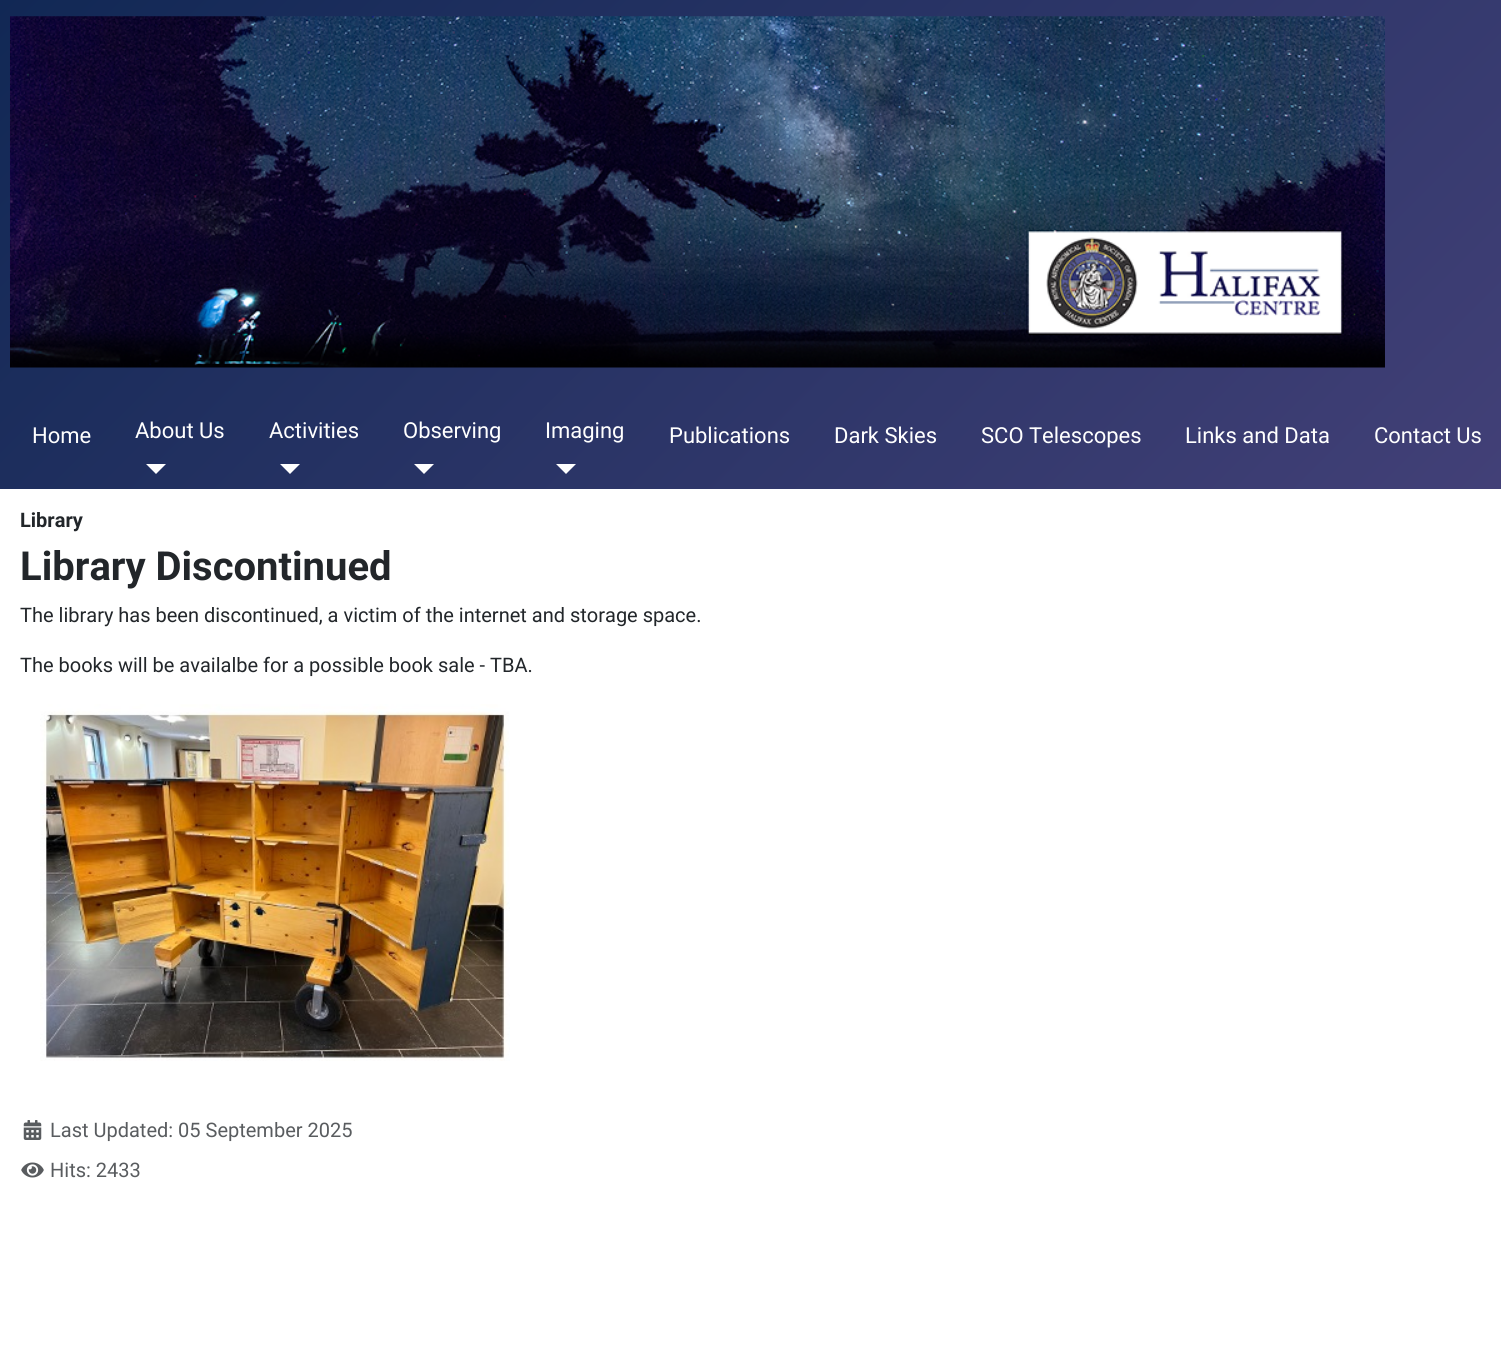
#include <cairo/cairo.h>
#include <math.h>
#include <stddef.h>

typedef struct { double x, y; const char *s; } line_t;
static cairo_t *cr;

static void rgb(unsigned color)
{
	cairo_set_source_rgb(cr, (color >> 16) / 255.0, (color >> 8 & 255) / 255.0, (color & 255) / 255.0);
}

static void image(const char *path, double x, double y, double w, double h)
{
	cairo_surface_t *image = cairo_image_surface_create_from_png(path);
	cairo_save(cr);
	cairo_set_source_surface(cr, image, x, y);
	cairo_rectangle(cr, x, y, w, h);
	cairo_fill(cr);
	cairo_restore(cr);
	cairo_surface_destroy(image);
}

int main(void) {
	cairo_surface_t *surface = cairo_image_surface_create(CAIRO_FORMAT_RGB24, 1501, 1355);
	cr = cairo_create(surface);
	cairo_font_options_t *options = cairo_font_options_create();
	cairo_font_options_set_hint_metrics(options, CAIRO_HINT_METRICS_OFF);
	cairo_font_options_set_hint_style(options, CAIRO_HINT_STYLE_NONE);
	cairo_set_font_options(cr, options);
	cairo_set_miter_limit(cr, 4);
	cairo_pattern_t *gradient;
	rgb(0xffffff);
	cairo_paint(cr);
	gradient = cairo_pattern_create_linear(253, -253, 1248, 742);
	cairo_pattern_add_color_stop_rgba(gradient, 0, 0.067, 0.157, 0.333, 1);
	cairo_pattern_add_color_stop_rgba(gradient, 1, 0.259, 0.251, 0.467, 1);
	cairo_set_source(cr, gradient);
	cairo_pattern_destroy(gradient);
	cairo_rectangle(cr, 0, 0, 1501, 489);
	cairo_fill(cr);
	image("img/1.png", 10, 16, 1375, 352);
	rgb(0xffffff);
	cairo_new_path(cr);
	cairo_move_to(cr, 146, 464);
	cairo_line_to(cr, 166, 464);
	cairo_line_to(cr, 156, 474);
	cairo_close_path(cr);
	cairo_fill(cr);
	cairo_new_path(cr);
	cairo_move_to(cr, 280, 464);
	cairo_line_to(cr, 300, 464);
	cairo_line_to(cr, 290, 474);
	cairo_close_path(cr);
	cairo_fill(cr);
	cairo_new_path(cr);
	cairo_move_to(cr, 414, 464);
	cairo_line_to(cr, 434, 464);
	cairo_line_to(cr, 424, 474);
	cairo_close_path(cr);
	cairo_fill(cr);
	cairo_new_path(cr);
	cairo_move_to(cr, 556, 464);
	cairo_line_to(cr, 576, 464);
	cairo_line_to(cr, 566, 474);
	cairo_close_path(cr);
	cairo_fill(cr);
	image("img/2.png", 40, 704, 470, 357);
	image("img/3.png", 23, 1120, 19, 20);
	image("img/4.png", 21, 1162, 23, 16);
	cairo_select_font_face(cr, "Roboto", CAIRO_FONT_SLANT_NORMAL, CAIRO_FONT_WEIGHT_NORMAL);
	cairo_set_font_size(cr, 22);
	{
		static const line_t items[] = {
			{32, 443, "Home"},
			{135, 438, "About Us"},
			{269, 438, "Activities"},
			{403, 438, "Observing"},
			{545, 438, "Imaging"},
			{669, 443, "Publications"},
			{834, 443, "Dark Skies"},
			{981, 443, "SCO Telescopes"},
			{1185, 443, "Links and Data"},
			{1374, 443, "Contact Us"},
		};
		for (size_t i = 0; i < sizeof items / sizeof *items; i++) {
			cairo_move_to(cr, items[i].x, items[i].y);
			cairo_show_text(cr, items[i].s);
		}
	}
	cairo_select_font_face(cr, "Roboto", CAIRO_FONT_SLANT_NORMAL, CAIRO_FONT_WEIGHT_BOLD);
	cairo_set_font_size(cr, 20);
	rgb(0x22262a);
	cairo_move_to(cr, 20, 527);
	cairo_show_text(cr, "Library");
	cairo_set_font_size(cr, 40);
	cairo_move_to(cr, 20, 580);
	cairo_show_text(cr, "Library Discontinued");
	cairo_select_font_face(cr, "Roboto", CAIRO_FONT_SLANT_NORMAL, CAIRO_FONT_WEIGHT_NORMAL);
	cairo_set_font_size(cr, 20);
	cairo_move_to(cr, 20, 622);
	cairo_show_text(cr, "The library has been discontinued, a victim of the internet and storage space.");
	cairo_move_to(cr, 20, 672);
	cairo_show_text(cr, "The books will be availalbe for a possible book sale - TBA.");
	rgb(0x595c5f);
	cairo_move_to(cr, 50, 1137);
	cairo_show_text(cr, "Last Updated: 05 September 2025");
	cairo_move_to(cr, 50, 1177);
	cairo_show_text(cr, "Hits: 2433");
	cairo_surface_write_to_png(surface, "page.png");
	cairo_font_options_destroy(options);
	cairo_destroy(cr);
	cairo_surface_destroy(surface);
	return 0;
}
